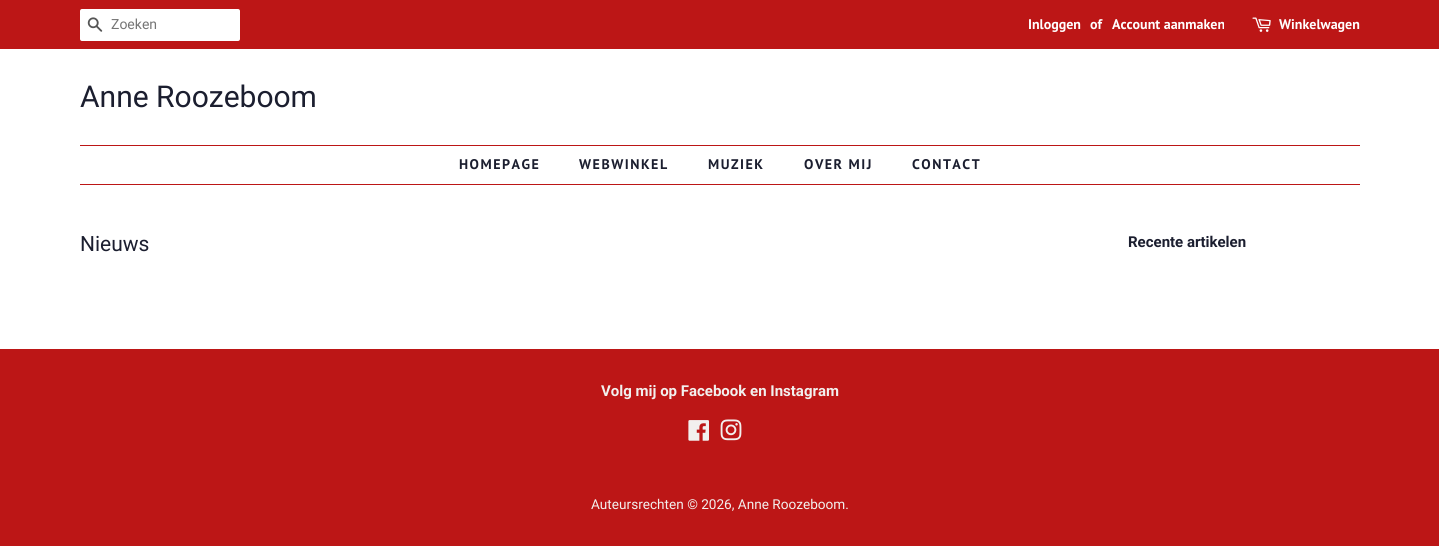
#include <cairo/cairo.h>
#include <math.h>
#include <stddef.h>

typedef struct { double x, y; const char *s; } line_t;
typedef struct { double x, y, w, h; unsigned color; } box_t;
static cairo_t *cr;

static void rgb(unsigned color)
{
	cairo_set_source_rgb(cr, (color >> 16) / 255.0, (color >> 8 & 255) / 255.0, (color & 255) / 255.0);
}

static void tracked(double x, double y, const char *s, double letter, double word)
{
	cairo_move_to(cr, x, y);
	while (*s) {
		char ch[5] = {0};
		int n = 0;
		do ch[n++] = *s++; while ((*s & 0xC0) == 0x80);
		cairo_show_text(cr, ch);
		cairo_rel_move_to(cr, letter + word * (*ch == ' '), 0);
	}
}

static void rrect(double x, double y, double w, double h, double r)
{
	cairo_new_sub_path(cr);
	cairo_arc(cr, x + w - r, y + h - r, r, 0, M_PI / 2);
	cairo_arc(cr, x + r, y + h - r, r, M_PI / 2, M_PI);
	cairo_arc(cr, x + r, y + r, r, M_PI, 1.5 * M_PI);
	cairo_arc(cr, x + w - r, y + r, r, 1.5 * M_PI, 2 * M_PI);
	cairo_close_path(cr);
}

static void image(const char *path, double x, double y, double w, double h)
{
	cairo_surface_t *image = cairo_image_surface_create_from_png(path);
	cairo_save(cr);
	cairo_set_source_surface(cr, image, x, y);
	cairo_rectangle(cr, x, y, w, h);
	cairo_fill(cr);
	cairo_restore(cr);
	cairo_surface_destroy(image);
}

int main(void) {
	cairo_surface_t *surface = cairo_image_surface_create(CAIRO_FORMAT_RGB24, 1439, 558);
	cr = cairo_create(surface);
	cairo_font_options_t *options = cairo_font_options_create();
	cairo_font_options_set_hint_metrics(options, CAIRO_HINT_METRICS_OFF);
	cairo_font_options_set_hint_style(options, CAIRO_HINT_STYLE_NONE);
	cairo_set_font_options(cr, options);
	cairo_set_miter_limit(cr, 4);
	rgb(0xffffff);
	cairo_paint(cr);
	rgb(0xbc1616);
	cairo_rectangle(cr, 0, 0, 1439, 49);
	cairo_fill(cr);
	rgb(0xffffff);
	rrect(80, 9, 160, 32, 2);
	cairo_fill(cr);
	image("img/1.png", 87, 17, 16, 15);
	image("img/2.png", 1252, 17, 19, 15);
	{
		static const box_t items[] = {
			{80, 145, 1280, 1, 0xbc1616},
			{80, 184, 1280, 1, 0xbc1616},
			{0, 349, 1439, 197, 0xbc1616},
		};
		for (size_t i = 0; i < sizeof items / sizeof *items; i++) {
			rgb(items[i].color);
			cairo_rectangle(cr, items[i].x, items[i].y, items[i].w, items[i].h);
			cairo_fill(cr);
		}
	}
	image("img/3.png", 688, 420, 21, 21);
	image("img/4.png", 720, 419, 22, 22);
	cairo_select_font_face(cr, "Roboto", CAIRO_FONT_SLANT_NORMAL, CAIRO_FONT_WEIGHT_NORMAL);
	cairo_set_font_size(cr, 14);
	rgb(0x757575);
	cairo_move_to(cr, 111, 29);
	cairo_show_text(cr, "Zoeken");
	cairo_select_font_face(cr, "PT Sans", CAIRO_FONT_SLANT_NORMAL, CAIRO_FONT_WEIGHT_BOLD);
	rgb(0xffffff);
	{
		static const line_t items[] = {
			{1028, 29, "Inloggen"},
			{1090, 29, "of"},
			{1112, 29, "Account aanmaken"},
			{1279, 29, "Winkelwagen"},
		};
		for (size_t i = 0; i < sizeof items / sizeof *items; i++) {
			cairo_move_to(cr, items[i].x, items[i].y);
			cairo_show_text(cr, items[i].s);
		}
	}
	cairo_select_font_face(cr, "Roboto", CAIRO_FONT_SLANT_NORMAL, CAIRO_FONT_WEIGHT_NORMAL);
	cairo_set_font_size(cr, 30);
	rgb(0x1b1e2f);
	cairo_move_to(cr, 80, 107);
	cairo_show_text(cr, "Anne Roozeboom");
	cairo_select_font_face(cr, "PT Sans", CAIRO_FONT_SLANT_NORMAL, CAIRO_FONT_WEIGHT_BOLD);
	cairo_set_font_size(cr, 14);
	{
		static const line_t items[] = {
			{459, 169, "HOMEPAGE"},
			{579, 169, "WEBWINKEL"},
			{708, 169, "MUZIEK"},
			{804, 169, "OVER MIJ"},
			{912, 169, "CONTACT"},
		};
		for (size_t i = 0; i < sizeof items / sizeof *items; i++) {
			tracked(items[i].x, items[i].y, items[i].s, 1.5, 0);
		}
	}
	cairo_select_font_face(cr, "Roboto", CAIRO_FONT_SLANT_NORMAL, CAIRO_FONT_WEIGHT_NORMAL);
	cairo_set_font_size(cr, 21);
	cairo_move_to(cr, 80, 251);
	cairo_show_text(cr, "Nieuws");
	cairo_select_font_face(cr, "Roboto", CAIRO_FONT_SLANT_NORMAL, CAIRO_FONT_WEIGHT_BOLD);
	cairo_set_font_size(cr, 15);
	cairo_move_to(cr, 1128, 247);
	cairo_show_text(cr, "Recente artikelen");
	rgb(0xf2f0ee);
	cairo_move_to(cr, 601, 396);
	cairo_show_text(cr, "Volg mij op Facebook en Instagram");
	cairo_select_font_face(cr, "Roboto", CAIRO_FONT_SLANT_NORMAL, CAIRO_FONT_WEIGHT_NORMAL);
	cairo_set_font_size(cr, 13.6);
	cairo_move_to(cr, 591, 509);
	cairo_show_text(cr, "Auteursrechten © 2026, Anne Roozeboom.");
	cairo_surface_write_to_png(surface, "page.png");
	cairo_font_options_destroy(options);
	cairo_destroy(cr);
	cairo_surface_destroy(surface);
	return 0;
}
